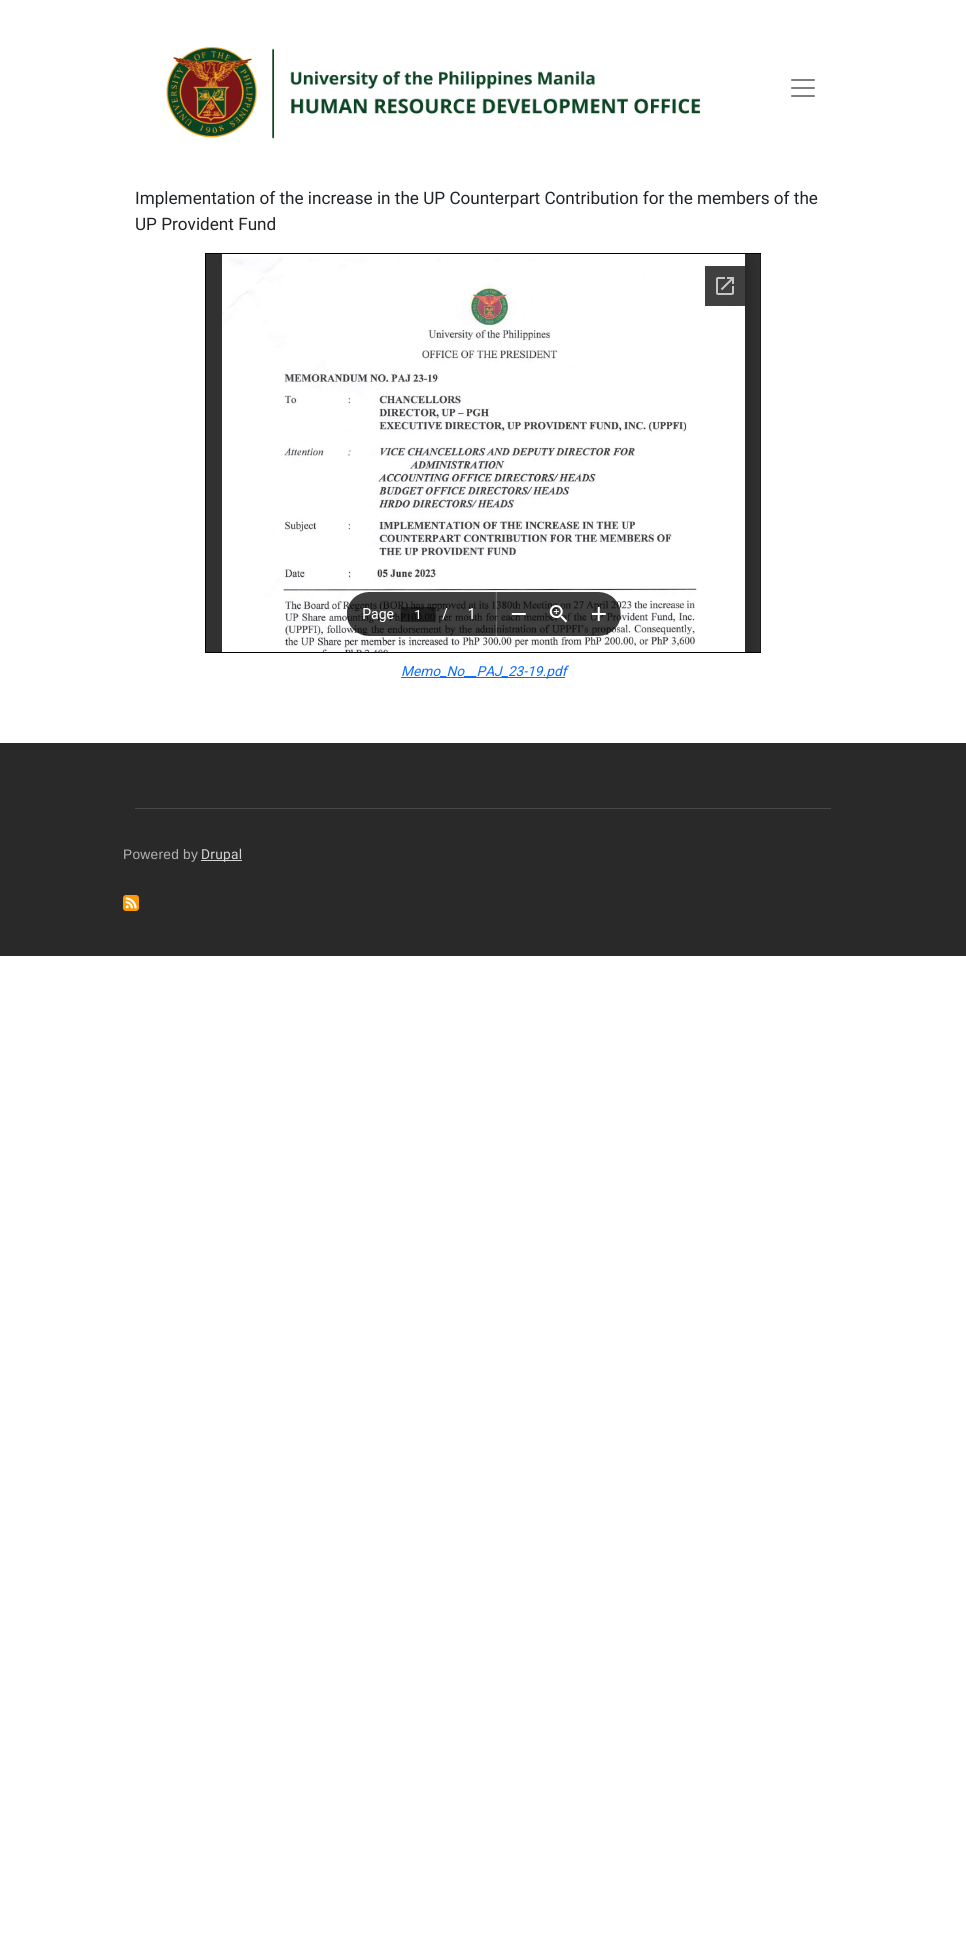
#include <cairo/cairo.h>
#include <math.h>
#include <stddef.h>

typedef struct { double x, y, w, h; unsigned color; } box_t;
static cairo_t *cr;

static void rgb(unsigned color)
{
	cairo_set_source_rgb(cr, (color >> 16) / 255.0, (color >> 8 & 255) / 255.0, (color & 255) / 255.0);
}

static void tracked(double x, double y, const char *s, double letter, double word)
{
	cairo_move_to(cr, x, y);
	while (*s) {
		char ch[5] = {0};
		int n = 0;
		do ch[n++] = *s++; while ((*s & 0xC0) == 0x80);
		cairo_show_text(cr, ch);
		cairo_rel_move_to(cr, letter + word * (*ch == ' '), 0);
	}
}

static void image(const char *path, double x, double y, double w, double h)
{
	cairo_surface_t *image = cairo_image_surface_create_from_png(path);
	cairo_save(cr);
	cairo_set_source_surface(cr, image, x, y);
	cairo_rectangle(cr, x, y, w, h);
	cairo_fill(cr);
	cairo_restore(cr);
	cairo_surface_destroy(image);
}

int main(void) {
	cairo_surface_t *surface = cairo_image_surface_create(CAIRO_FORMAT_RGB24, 966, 1937);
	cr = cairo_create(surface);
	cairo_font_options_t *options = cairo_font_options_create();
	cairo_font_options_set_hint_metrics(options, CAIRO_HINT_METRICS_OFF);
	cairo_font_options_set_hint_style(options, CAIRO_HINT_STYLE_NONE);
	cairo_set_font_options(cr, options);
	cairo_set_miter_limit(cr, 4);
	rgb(0xffffff);
	cairo_paint(cr);
	image("img/1.png", 166, 46, 534, 93);
	image("img/2.png", 791, 79, 24, 18);
	cairo_rectangle(cr, 205.5, 253.5, 555, 399);
	rgb(0x000000);
	cairo_set_line_width(cr, 1);
	cairo_stroke(cr);
	image("img/3.png", 206, 254, 555, 398);
	{
		static const box_t items[] = {
			{401, 677, 164, 1, 0x0d6efd},
			{0, 743, 966, 213, 0x292929},
			{135, 808, 696, 1, 0x494949},
			{201, 860, 41, 1, 0xd4d4d4},
		};
		for (size_t i = 0; i < sizeof items / sizeof *items; i++) {
			rgb(items[i].color);
			cairo_rectangle(cr, items[i].x, items[i].y, items[i].w, items[i].h);
			cairo_fill(cr);
		}
	}
	image("img/4.png", 123, 895, 16, 16);
	cairo_select_font_face(cr, "Roboto", CAIRO_FONT_SLANT_NORMAL, CAIRO_FONT_WEIGHT_NORMAL);
	cairo_set_font_size(cr, 17.15);
	rgb(0x212529);
	cairo_move_to(cr, 135, 204);
	cairo_show_text(cr, "Implementation of the increase in the UP Counterpart Contribution for the members of the");
	cairo_move_to(cr, 135, 230);
	cairo_show_text(cr, "UP Provident Fund");
	cairo_select_font_face(cr, "Roboto", CAIRO_FONT_SLANT_ITALIC, CAIRO_FONT_WEIGHT_NORMAL);
	cairo_set_font_size(cr, 13.75);
	rgb(0x0d6efd);
	cairo_move_to(cr, 401, 676);
	cairo_show_text(cr, "Memo_No__PAJ_23-19.pdf");
	cairo_select_font_face(cr, "Liberation Sans", CAIRO_FONT_SLANT_NORMAL, CAIRO_FONT_WEIGHT_NORMAL);
	rgb(0xb4b4b4);
	tracked(123, 859, "Powered by", 0.25, 0);
	cairo_select_font_face(cr, "Roboto", CAIRO_FONT_SLANT_NORMAL, CAIRO_FONT_WEIGHT_NORMAL);
	rgb(0xd4d4d4);
	tracked(201, 859, "Drupal", 0.25, 0);
	cairo_surface_write_to_png(surface, "page.png");
	cairo_font_options_destroy(options);
	cairo_destroy(cr);
	cairo_surface_destroy(surface);
	return 0;
}
